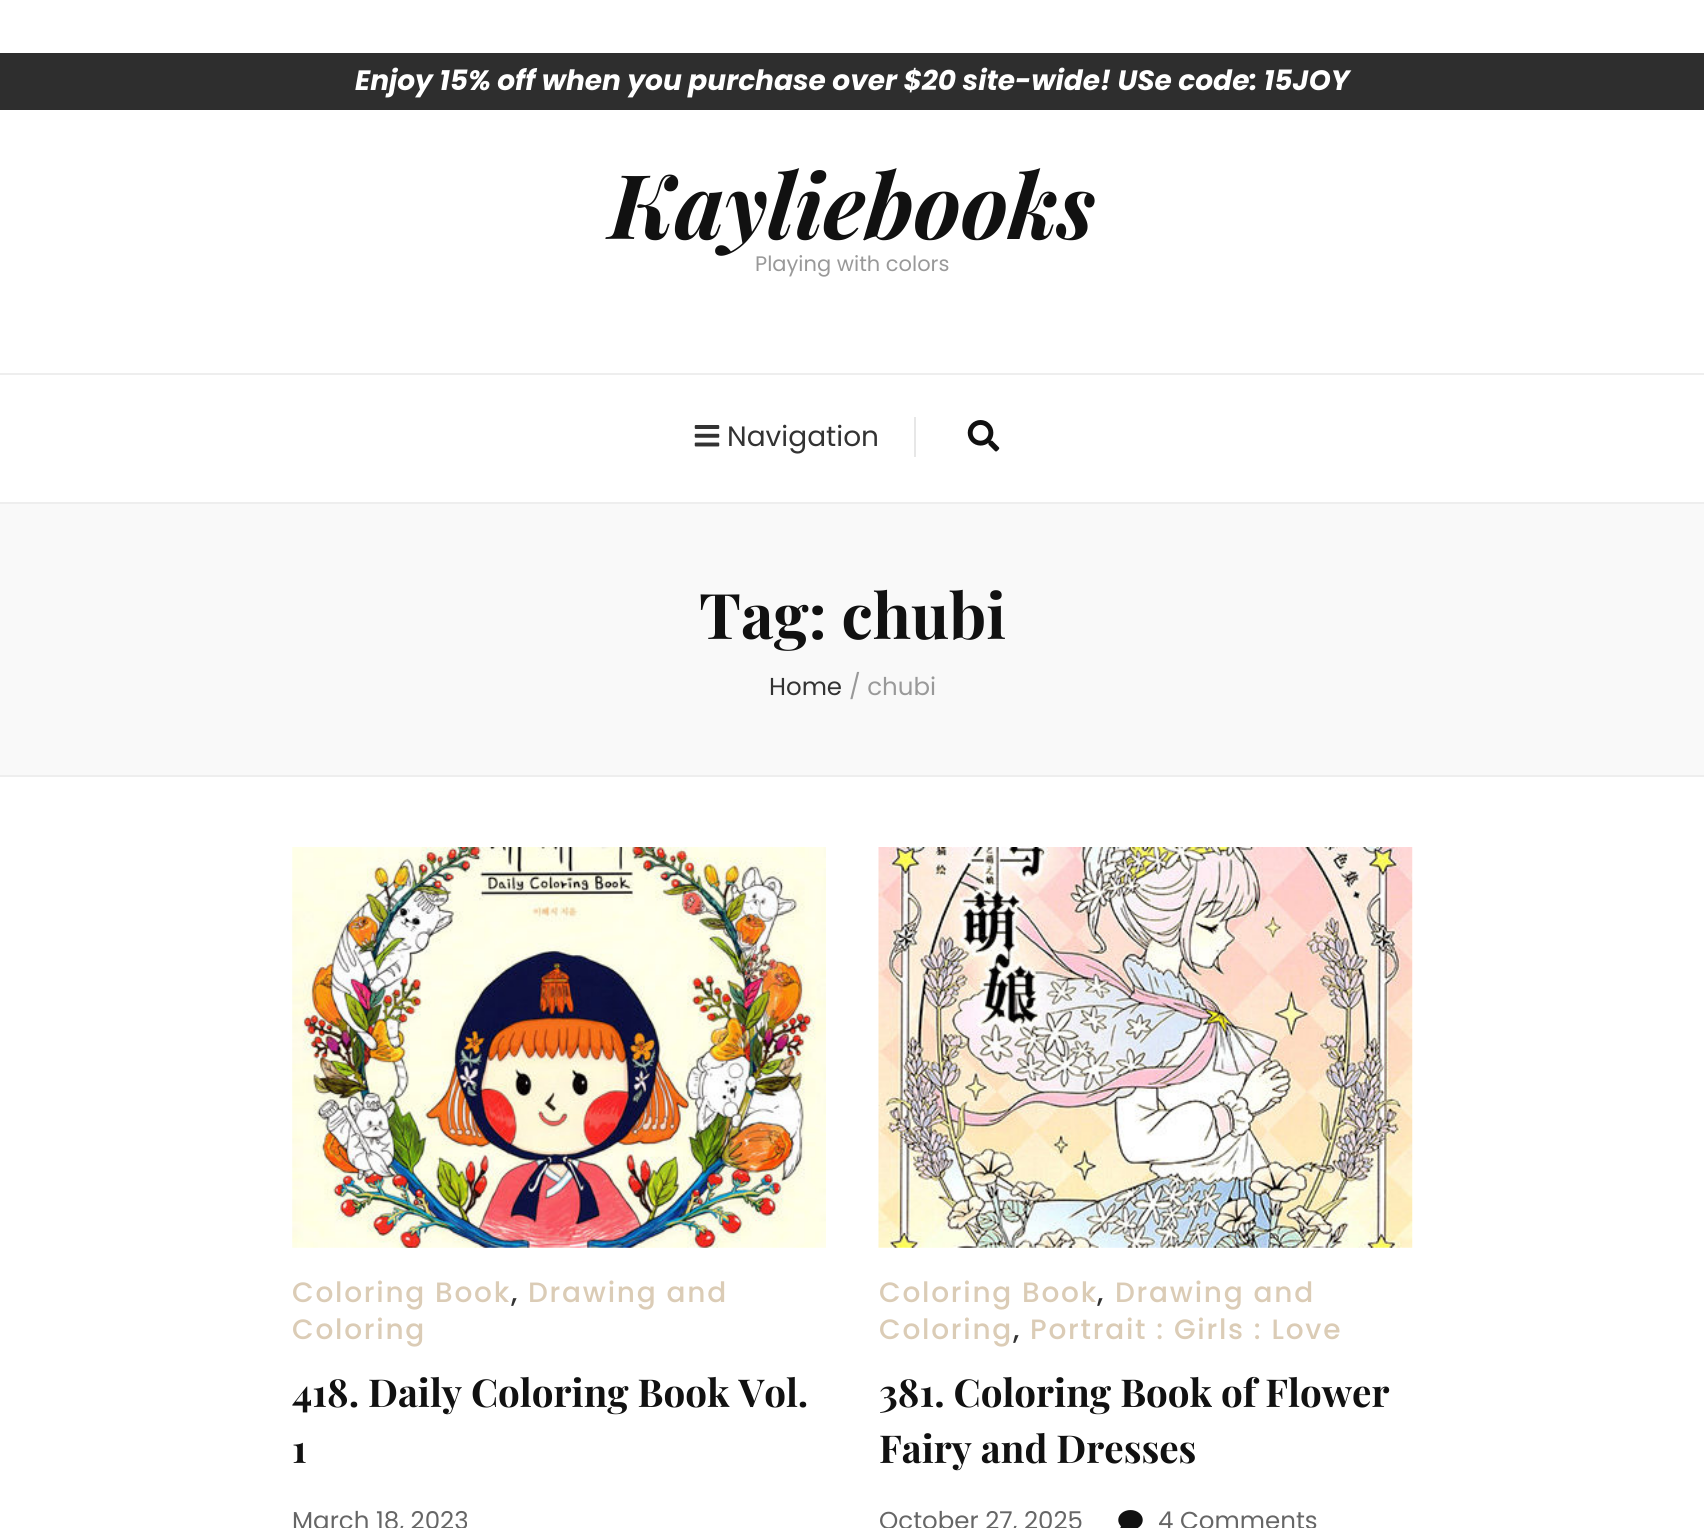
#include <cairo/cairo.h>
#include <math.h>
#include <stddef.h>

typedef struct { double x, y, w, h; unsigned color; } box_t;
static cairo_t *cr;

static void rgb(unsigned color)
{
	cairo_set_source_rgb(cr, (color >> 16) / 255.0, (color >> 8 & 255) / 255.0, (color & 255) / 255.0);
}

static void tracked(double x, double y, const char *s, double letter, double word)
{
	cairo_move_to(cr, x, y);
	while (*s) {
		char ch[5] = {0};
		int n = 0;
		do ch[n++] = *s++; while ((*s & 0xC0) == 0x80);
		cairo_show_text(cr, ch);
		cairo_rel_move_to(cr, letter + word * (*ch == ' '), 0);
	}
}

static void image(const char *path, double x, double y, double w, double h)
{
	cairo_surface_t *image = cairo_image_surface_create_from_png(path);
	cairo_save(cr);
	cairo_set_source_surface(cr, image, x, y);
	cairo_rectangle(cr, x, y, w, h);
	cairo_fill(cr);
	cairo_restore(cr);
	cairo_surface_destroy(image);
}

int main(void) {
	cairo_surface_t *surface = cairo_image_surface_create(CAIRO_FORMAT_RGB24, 1704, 1528);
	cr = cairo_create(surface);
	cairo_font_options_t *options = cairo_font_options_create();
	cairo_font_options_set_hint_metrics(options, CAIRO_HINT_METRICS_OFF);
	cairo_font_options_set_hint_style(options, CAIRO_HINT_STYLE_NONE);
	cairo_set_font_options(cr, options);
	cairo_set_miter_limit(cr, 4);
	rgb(0xffffff);
	cairo_paint(cr);
	{
		static const box_t items[] = {
			{0, 53, 1704, 57, 0x2e2e2e},
			{0, 373, 1704, 2, 0xeeeeee},
			{0, 502, 1704, 2, 0xeeeeee},
		};
		for (size_t i = 0; i < sizeof items / sizeof *items; i++) {
			rgb(items[i].color);
			cairo_rectangle(cr, items[i].x, items[i].y, items[i].w, items[i].h);
			cairo_fill(cr);
		}
	}
	image("img/1.png", 694, 425, 26, 22);
	rgb(0xe7e7e7);
	cairo_rectangle(cr, 914, 417, 2, 40);
	cairo_fill(cr);
	image("img/2.png", 967, 420, 33, 32);
	rgb(0xf9f9f9);
	cairo_rectangle(cr, 0, 504, 1704, 271);
	cairo_fill(cr);
	rgb(0xeeeeee);
	cairo_rectangle(cr, 0, 775, 1704, 2);
	cairo_fill(cr);
	image("img/3.png", 292, 847, 534, 401);
	image("img/4.png", 878, 847, 535, 401);
	image("img/5.png", 1118, 1510, 25, 18);
	cairo_select_font_face(cr, "Poppins", CAIRO_FONT_SLANT_ITALIC, CAIRO_FONT_WEIGHT_BOLD);
	cairo_set_font_size(cr, 28);
	rgb(0xffffff);
	cairo_move_to(cr, 355, 90);
	cairo_show_text(cr, "Enjoy 15% off when you purchase over $20 site-wide! USe code: 15JOY");
	cairo_select_font_face(cr, "Playfair Display", CAIRO_FONT_SLANT_ITALIC, CAIRO_FONT_WEIGHT_BOLD);
	cairo_set_font_size(cr, 89.25);
	rgb(0x111111);
	cairo_move_to(cr, 609, 239);
	cairo_show_text(cr, "Kayliebooks");
	cairo_select_font_face(cr, "Poppins", CAIRO_FONT_SLANT_NORMAL, CAIRO_FONT_WEIGHT_NORMAL);
	cairo_set_font_size(cr, 21);
	rgb(0x999999);
	cairo_move_to(cr, 755, 271);
	cairo_show_text(cr, "Playing with colors");
	cairo_set_font_size(cr, 28);
	rgb(0x333333);
	cairo_move_to(cr, 727, 446);
	cairo_show_text(cr, "Navigation");
	cairo_select_font_face(cr, "Playfair Display", CAIRO_FONT_SLANT_NORMAL, CAIRO_FONT_WEIGHT_BOLD);
	cairo_set_font_size(cr, 63);
	rgb(0x111111);
	cairo_move_to(cr, 699, 639);
	cairo_show_text(cr, "Tag: chubi");
	cairo_select_font_face(cr, "Poppins", CAIRO_FONT_SLANT_NORMAL, CAIRO_FONT_WEIGHT_NORMAL);
	cairo_set_font_size(cr, 24.5);
	rgb(0x333333);
	cairo_move_to(cr, 769, 695);
	cairo_show_text(cr, "Home");
	rgb(0x999999);
	cairo_move_to(cr, 849, 695);
	cairo_show_text(cr, "/ chubi");
	cairo_select_font_face(cr, "Poppins Medium", CAIRO_FONT_SLANT_NORMAL, CAIRO_FONT_WEIGHT_NORMAL);
	cairo_set_font_size(cr, 28);
	rgb(0xdbccb6);
	tracked(292, 1302, "Coloring Book", 1.75, 0);
	rgb(0x333333);
	tracked(511, 1302, ",", 1.75, 0);
	rgb(0xdbccb6);
	tracked(528, 1302, "Drawing and", 1.75, 0);
	tracked(292, 1339, "Coloring", 1.75, 0);
	cairo_select_font_face(cr, "Playfair Display", CAIRO_FONT_SLANT_NORMAL, CAIRO_FONT_WEIGHT_BOLD);
	cairo_set_font_size(cr, 38.5);
	rgb(0x111111);
	cairo_move_to(cr, 292, 1407);
	cairo_show_text(cr, "418. Daily Coloring Book Vol.");
	cairo_move_to(cr, 292, 1463);
	cairo_show_text(cr, "1");
	cairo_select_font_face(cr, "Poppins", CAIRO_FONT_SLANT_NORMAL, CAIRO_FONT_WEIGHT_NORMAL);
	cairo_set_font_size(cr, 24.5);
	rgb(0x666666);
	cairo_move_to(cr, 292, 1529);
	cairo_show_text(cr, "March 18, 2023");
	cairo_select_font_face(cr, "Poppins Medium", CAIRO_FONT_SLANT_NORMAL, CAIRO_FONT_WEIGHT_NORMAL);
	cairo_set_font_size(cr, 28);
	rgb(0xdbccb6);
	tracked(879, 1302, "Coloring Book", 1.75, 0);
	rgb(0x333333);
	tracked(1097, 1302, ",", 1.75, 0);
	rgb(0xdbccb6);
	tracked(1115, 1302, "Drawing and", 1.75, 0);
	tracked(879, 1339, "Coloring", 1.75, 0);
	rgb(0x333333);
	tracked(1013, 1339, ",", 1.75, 0);
	rgb(0xdbccb6);
	tracked(1030, 1339, "Portrait : Girls : Love", 1.75, 0);
	cairo_select_font_face(cr, "Playfair Display", CAIRO_FONT_SLANT_NORMAL, CAIRO_FONT_WEIGHT_BOLD);
	cairo_set_font_size(cr, 38.5);
	rgb(0x111111);
	cairo_move_to(cr, 879, 1407);
	cairo_show_text(cr, "381. Coloring Book of Flower");
	cairo_move_to(cr, 879, 1463);
	cairo_show_text(cr, "Fairy and Dresses");
	cairo_select_font_face(cr, "Poppins", CAIRO_FONT_SLANT_NORMAL, CAIRO_FONT_WEIGHT_NORMAL);
	cairo_set_font_size(cr, 24.5);
	rgb(0x666666);
	cairo_move_to(cr, 879, 1529);
	cairo_show_text(cr, "October 27, 2025");
	cairo_move_to(cr, 1158, 1529);
	cairo_show_text(cr, "4 Comments");
	cairo_surface_write_to_png(surface, "page.png");
	cairo_font_options_destroy(options);
	cairo_destroy(cr);
	cairo_surface_destroy(surface);
	return 0;
}
